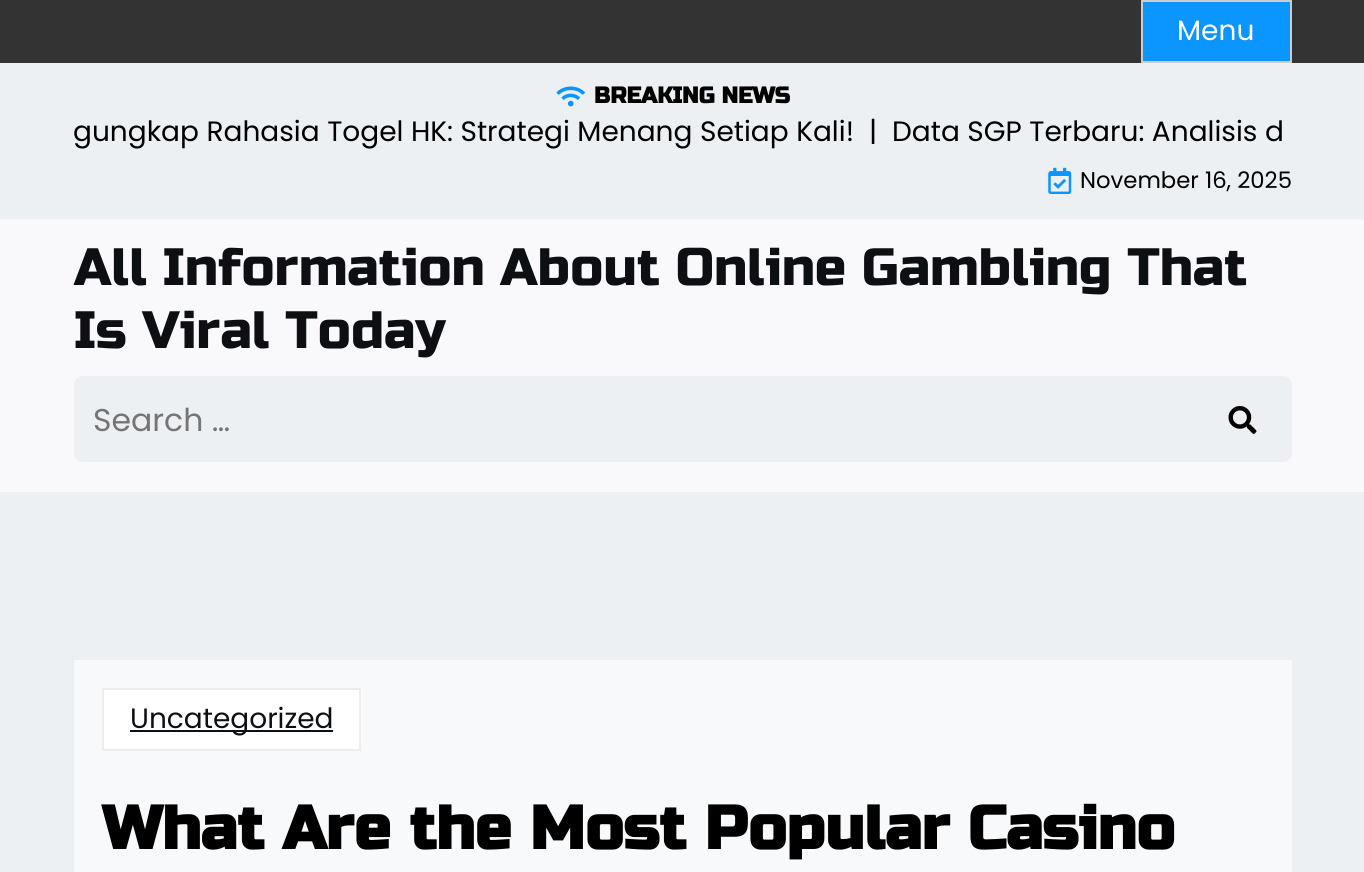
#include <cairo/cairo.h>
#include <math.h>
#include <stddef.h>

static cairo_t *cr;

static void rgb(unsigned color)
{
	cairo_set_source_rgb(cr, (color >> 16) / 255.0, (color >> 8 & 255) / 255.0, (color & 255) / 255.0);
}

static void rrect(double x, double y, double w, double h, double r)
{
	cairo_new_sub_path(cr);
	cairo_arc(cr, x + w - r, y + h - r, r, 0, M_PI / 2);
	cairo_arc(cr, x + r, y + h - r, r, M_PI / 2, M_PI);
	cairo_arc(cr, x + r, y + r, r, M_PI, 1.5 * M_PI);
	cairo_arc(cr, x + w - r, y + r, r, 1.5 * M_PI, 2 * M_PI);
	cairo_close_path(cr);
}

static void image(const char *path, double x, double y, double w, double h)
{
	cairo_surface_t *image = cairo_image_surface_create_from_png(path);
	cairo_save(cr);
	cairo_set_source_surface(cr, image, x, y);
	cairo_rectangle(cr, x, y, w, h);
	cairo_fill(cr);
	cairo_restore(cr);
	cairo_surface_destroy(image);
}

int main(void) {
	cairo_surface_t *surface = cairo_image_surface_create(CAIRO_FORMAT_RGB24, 1364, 872);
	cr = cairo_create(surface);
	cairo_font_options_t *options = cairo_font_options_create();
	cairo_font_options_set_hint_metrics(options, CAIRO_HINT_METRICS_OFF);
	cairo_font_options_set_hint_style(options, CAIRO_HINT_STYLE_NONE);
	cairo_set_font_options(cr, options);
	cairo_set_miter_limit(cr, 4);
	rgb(0xecf0f3);
	cairo_paint(cr);
	rgb(0x333333);
	cairo_rectangle(cr, 0, 0, 1364, 63);
	cairo_fill(cr);
	rgb(0x0a95ff);
	cairo_rectangle(cr, 1142, 1, 149, 61);
	cairo_fill_preserve(cr);
	rgb(0xcccccc);
	cairo_stroke(cr);
	image("img/1.png", 556, 86, 29, 21);
	image("img/2.png", 1048, 167, 24, 27);
	rgb(0xf9f9fc);
	cairo_rectangle(cr, 0, 219, 1364, 273);
	cairo_fill(cr);
	rgb(0xecf0f3);
	rrect(74, 376, 1218, 86, 9);
	cairo_fill(cr);
	image("img/3.png", 1228, 406, 29, 28);
	rgb(0xf8f9fa);
	cairo_rectangle(cr, 74, 660, 1218, 212);
	cairo_fill(cr);
	rgb(0xffffff);
	cairo_rectangle(cr, 103, 689, 257, 61);
	cairo_fill_preserve(cr);
	rgb(0xededed);
	cairo_stroke(cr);
	rgb(0x0d1013);
	cairo_rectangle(cr, 130, 730, 203, 2);
	cairo_fill(cr);
	cairo_select_font_face(cr, "Poppins", CAIRO_FONT_SLANT_NORMAL, CAIRO_FONT_WEIGHT_NORMAL);
	cairo_set_font_size(cr, 28);
	rgb(0xffffff);
	cairo_move_to(cr, 1177, 40);
	cairo_show_text(cr, "Menu");
	cairo_select_font_face(cr, "Russo One", CAIRO_FONT_SLANT_NORMAL, CAIRO_FONT_WEIGHT_BOLD);
	cairo_set_font_size(cr, 22.75);
	rgb(0x000000);
	cairo_move_to(cr, 594, 103);
	cairo_show_text(cr, "BREAKING NEWS");
	cairo_select_font_face(cr, "Poppins", CAIRO_FONT_SLANT_NORMAL, CAIRO_FONT_WEIGHT_NORMAL);
	cairo_set_font_size(cr, 28);
	cairo_move_to(cr, 73, 141);
	cairo_show_text(cr, "gungkap Rahasia Togel HK: Strategi Menang Setiap Kali!  |");
	cairo_move_to(cr, 892, 141);
	cairo_show_text(cr, "Data SGP Terbaru: Analisis d");
	cairo_set_font_size(cr, 22.75);
	cairo_move_to(cr, 1080, 188);
	cairo_show_text(cr, "November 16, 2025");
	cairo_select_font_face(cr, "Russo One", CAIRO_FONT_SLANT_NORMAL, CAIRO_FONT_WEIGHT_NORMAL);
	cairo_set_font_size(cr, 52.5);
	rgb(0x0d1013);
	cairo_move_to(cr, 74, 285);
	cairo_show_text(cr, "All Information About Online Gambling That");
	cairo_move_to(cr, 74, 348);
	cairo_show_text(cr, "Is Viral Today");
	cairo_select_font_face(cr, "Poppins", CAIRO_FONT_SLANT_NORMAL, CAIRO_FONT_WEIGHT_NORMAL);
	cairo_set_font_size(cr, 31.5);
	rgb(0x757575);
	cairo_move_to(cr, 93, 431);
	cairo_show_text(cr, "Search …");
	cairo_set_font_size(cr, 28);
	rgb(0x0d1013);
	cairo_move_to(cr, 130, 728);
	cairo_show_text(cr, "Uncategorized");
	cairo_select_font_face(cr, "Russo One", CAIRO_FONT_SLANT_NORMAL, CAIRO_FONT_WEIGHT_BOLD);
	cairo_set_font_size(cr, 61.25);
	rgb(0x000000);
	cairo_move_to(cr, 102, 849);
	cairo_show_text(cr, "What Are the Most Popular Casino");
	cairo_surface_write_to_png(surface, "page.png");
	cairo_font_options_destroy(options);
	cairo_destroy(cr);
	cairo_surface_destroy(surface);
	return 0;
}
